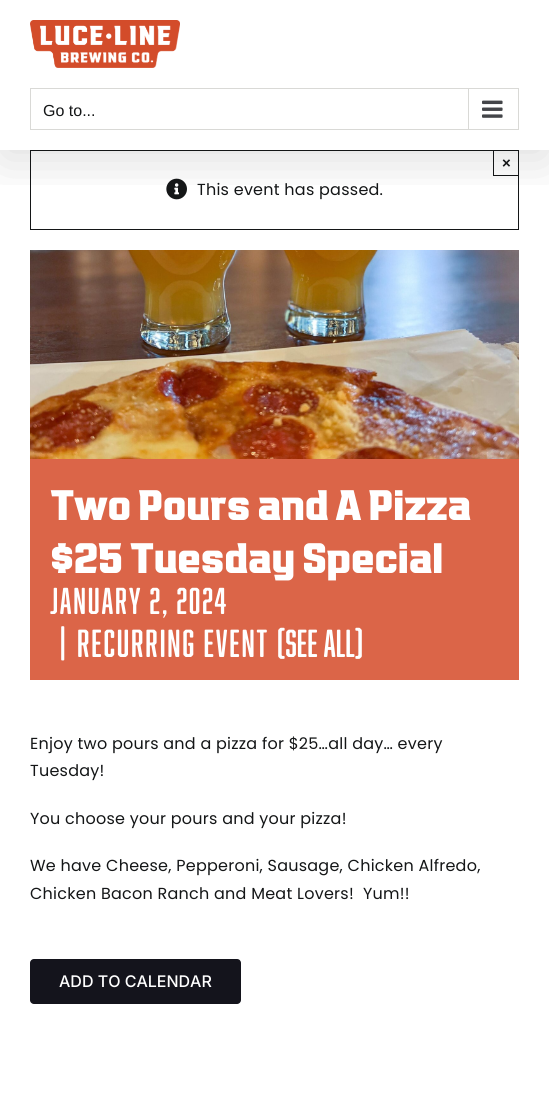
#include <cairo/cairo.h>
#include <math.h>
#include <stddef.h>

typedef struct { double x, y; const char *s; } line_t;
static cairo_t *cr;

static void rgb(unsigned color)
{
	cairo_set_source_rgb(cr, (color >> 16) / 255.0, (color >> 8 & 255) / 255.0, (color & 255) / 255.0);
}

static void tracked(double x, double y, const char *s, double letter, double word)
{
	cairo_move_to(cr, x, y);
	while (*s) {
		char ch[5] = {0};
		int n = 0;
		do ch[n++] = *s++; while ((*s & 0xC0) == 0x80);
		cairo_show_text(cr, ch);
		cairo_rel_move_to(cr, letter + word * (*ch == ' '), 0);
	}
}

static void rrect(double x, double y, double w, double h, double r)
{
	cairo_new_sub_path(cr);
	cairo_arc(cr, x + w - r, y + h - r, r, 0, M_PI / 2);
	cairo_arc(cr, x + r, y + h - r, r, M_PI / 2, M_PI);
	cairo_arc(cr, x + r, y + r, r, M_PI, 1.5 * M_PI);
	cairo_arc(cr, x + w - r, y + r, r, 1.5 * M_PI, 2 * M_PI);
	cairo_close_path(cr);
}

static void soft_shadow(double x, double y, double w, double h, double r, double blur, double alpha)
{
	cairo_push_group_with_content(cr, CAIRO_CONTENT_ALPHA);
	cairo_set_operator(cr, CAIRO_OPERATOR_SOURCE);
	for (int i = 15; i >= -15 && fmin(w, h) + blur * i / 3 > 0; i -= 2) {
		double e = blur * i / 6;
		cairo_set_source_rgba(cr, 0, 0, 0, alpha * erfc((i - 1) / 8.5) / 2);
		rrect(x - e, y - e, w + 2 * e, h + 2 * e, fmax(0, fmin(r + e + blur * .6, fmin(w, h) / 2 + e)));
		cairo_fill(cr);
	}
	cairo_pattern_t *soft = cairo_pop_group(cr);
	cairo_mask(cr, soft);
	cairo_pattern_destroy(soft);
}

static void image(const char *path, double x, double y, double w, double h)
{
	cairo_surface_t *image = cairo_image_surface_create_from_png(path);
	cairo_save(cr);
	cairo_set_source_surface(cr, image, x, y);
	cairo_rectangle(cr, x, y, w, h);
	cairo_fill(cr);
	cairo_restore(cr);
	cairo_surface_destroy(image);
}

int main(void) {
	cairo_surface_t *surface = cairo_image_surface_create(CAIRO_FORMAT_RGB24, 549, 1101);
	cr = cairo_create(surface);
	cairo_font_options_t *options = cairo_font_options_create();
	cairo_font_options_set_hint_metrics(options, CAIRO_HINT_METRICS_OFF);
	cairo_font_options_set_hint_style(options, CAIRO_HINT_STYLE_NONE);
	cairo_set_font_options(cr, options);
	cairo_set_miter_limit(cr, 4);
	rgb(0xffffff);
	cairo_paint(cr);
	cairo_rectangle(cr, 30.5, 150.5, 488, 79);
	rgb(0x141617);
	cairo_set_line_width(cr, 1);
	cairo_stroke(cr);
	cairo_rectangle(cr, 493, 175, 26, 1);
	cairo_fill(cr);
	cairo_rectangle(cr, 493, 150, 1, 26);
	cairo_fill(cr);
	image("img/3.png", 166, 178, 21, 22);
	cairo_save(cr);
	cairo_rectangle(cr, 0, 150, 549, 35);
	cairo_clip(cr);
	rgb(0x000000);
	soft_shadow(2, 12, 545, 146, 0, 25, 0.14);
	cairo_restore(cr);
	image("img/1.png", 30, 20, 150, 48);
	cairo_rectangle(cr, 30.5, 88.5, 488, 41);
	rgb(0xd9d9d6);
	cairo_stroke(cr);
	cairo_rectangle(cr, 468, 89, 1, 40);
	cairo_fill(cr);
	image("img/2.png", 482, 100, 21, 18);
	image("img/4.png", 30, 250, 489, 209);
	rgb(0xdb6548);
	cairo_rectangle(cr, 30, 459, 489, 221);
	cairo_fill(cr);
	rgb(0x14141c);
	rrect(30, 959, 211, 45, 4);
	cairo_fill(cr);
	cairo_select_font_face(cr, "Liberation Sans", CAIRO_FONT_SLANT_NORMAL, CAIRO_FONT_WEIGHT_NORMAL);
	cairo_set_font_size(cr, 16);
	rgb(0x141617);
	cairo_move_to(cr, 43, 116);
	cairo_show_text(cr, "Go to...");
	cairo_select_font_face(cr, "Liberation Sans", CAIRO_FONT_SLANT_NORMAL, CAIRO_FONT_WEIGHT_BOLD);
	cairo_set_font_size(cr, 15);
	cairo_move_to(cr, 502, 168);
	cairo_show_text(cr, "×");
	cairo_select_font_face(cr, "Poppins", CAIRO_FONT_SLANT_NORMAL, CAIRO_FONT_WEIGHT_NORMAL);
	cairo_set_font_size(cr, 16);
	tracked(197, 195, "This event has passed.", 0.25, 0);
	cairo_select_font_face(cr, "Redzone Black", CAIRO_FONT_SLANT_NORMAL, CAIRO_FONT_WEIGHT_NORMAL);
	cairo_set_font_size(cr, 44.75);
	rgb(0xffffff);
	tracked(50, 520, "Two Pours and A Pizza", -0.7, 0);
	tracked(50, 573, "$25 Tuesday Special", -0.7, 0);
	cairo_select_font_face(cr, "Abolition", CAIRO_FONT_SLANT_NORMAL, CAIRO_FONT_WEIGHT_NORMAL);
	cairo_set_font_size(cr, 34.5);
	tracked(50, 614, "January 2, 2024", 1.75, 0);
	cairo_set_font_size(cr, 36);
	tracked(60, 657, "|", 1.75, 0);
	tracked(77, 657, "Recurring Event", 1.75, 0);
	cairo_move_to(cr, 277, 657);
	cairo_show_text(cr, "(See all)");
	cairo_select_font_face(cr, "Poppins", CAIRO_FONT_SLANT_NORMAL, CAIRO_FONT_WEIGHT_NORMAL);
	cairo_set_font_size(cr, 16);
	rgb(0x141617);
	{
		static const line_t items[] = {
			{30, 749, "Enjoy two pours and a pizza for $25…all day… every"},
			{30, 776, "Tuesday!"},
			{30, 824, "You choose your pours and your pizza!"},
			{30, 871, "We have Cheese, Pepperoni, Sausage, Chicken Alfredo,"},
			{30, 899, "Chicken Bacon Ranch and Meat Lovers!  Yum!!"},
		};
		for (size_t i = 0; i < sizeof items / sizeof *items; i++) {
			tracked(items[i].x, items[i].y, items[i].s, 0.25, 0);
		}
	}
	cairo_select_font_face(cr, "Inter Medium", CAIRO_FONT_SLANT_NORMAL, CAIRO_FONT_WEIGHT_NORMAL);
	rgb(0xffffff);
	cairo_move_to(cr, 59, 987);
	cairo_show_text(cr, "ADD TO CALENDAR");
	cairo_surface_write_to_png(surface, "page.png");
	cairo_font_options_destroy(options);
	cairo_destroy(cr);
	cairo_surface_destroy(surface);
	return 0;
}
